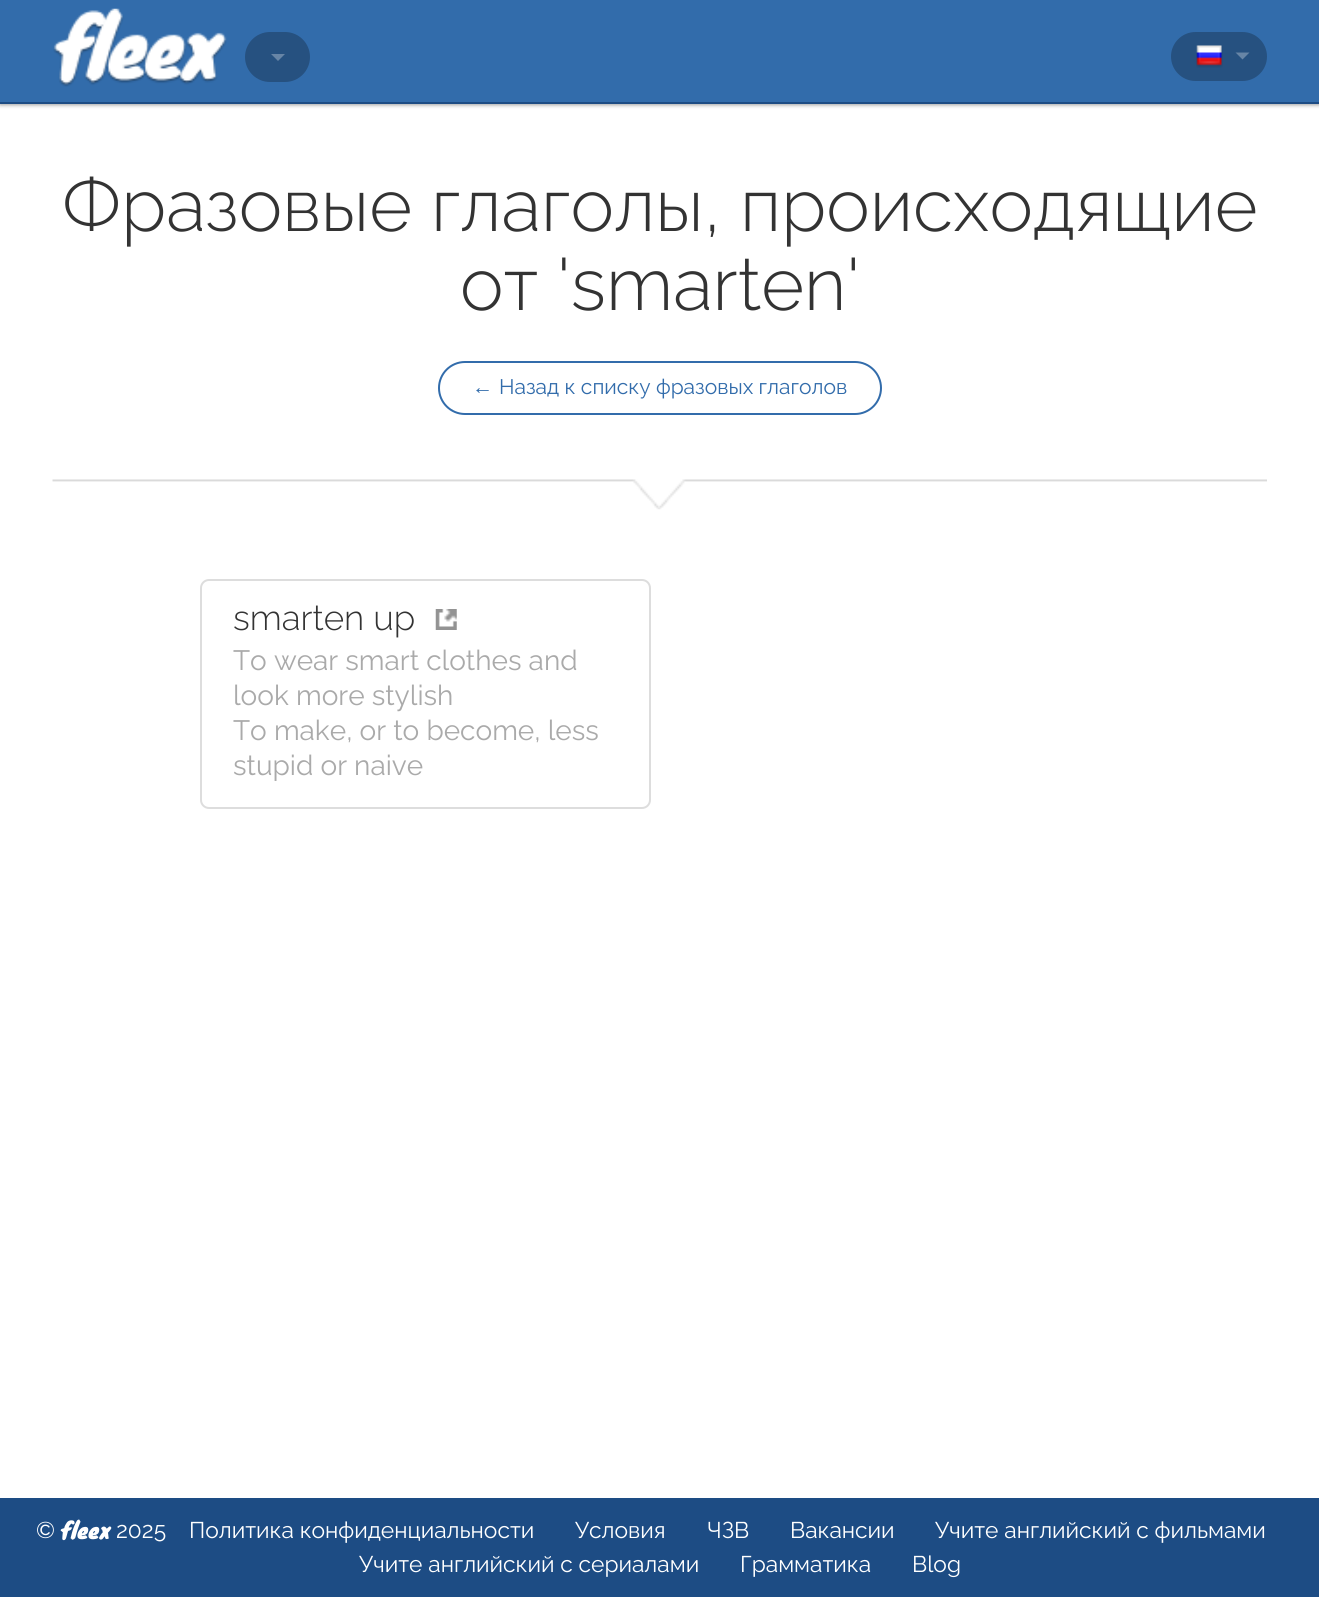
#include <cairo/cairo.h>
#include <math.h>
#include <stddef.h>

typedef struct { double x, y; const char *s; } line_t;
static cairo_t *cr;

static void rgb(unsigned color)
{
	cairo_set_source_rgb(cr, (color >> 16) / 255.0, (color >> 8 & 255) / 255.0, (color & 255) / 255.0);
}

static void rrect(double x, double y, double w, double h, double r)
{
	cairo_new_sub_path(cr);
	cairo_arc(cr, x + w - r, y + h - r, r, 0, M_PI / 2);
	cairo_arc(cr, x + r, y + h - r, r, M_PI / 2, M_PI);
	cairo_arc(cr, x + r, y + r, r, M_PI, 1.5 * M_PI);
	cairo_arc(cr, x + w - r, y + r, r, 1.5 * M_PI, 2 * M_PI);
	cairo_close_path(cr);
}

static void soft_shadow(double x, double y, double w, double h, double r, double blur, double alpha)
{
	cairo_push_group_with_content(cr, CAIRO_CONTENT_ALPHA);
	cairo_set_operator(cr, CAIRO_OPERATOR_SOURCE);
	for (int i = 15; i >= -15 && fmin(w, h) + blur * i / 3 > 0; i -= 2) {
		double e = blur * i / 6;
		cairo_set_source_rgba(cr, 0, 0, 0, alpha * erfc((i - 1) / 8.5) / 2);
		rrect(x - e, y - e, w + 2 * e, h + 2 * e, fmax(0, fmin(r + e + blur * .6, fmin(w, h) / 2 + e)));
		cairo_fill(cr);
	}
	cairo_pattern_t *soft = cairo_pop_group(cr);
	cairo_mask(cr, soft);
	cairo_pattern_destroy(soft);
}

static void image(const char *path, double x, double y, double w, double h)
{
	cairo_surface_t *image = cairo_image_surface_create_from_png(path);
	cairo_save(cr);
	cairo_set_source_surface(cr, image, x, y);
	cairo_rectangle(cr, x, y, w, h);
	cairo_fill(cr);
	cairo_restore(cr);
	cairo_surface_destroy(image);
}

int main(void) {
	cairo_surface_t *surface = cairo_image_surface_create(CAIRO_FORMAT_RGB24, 1319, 1597);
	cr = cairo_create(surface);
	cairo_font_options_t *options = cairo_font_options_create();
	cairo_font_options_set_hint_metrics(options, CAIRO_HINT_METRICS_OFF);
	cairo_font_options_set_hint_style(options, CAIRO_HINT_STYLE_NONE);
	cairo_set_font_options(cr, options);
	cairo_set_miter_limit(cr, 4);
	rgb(0xffffff);
	cairo_paint(cr);
	rgb(0x9d9d9d);
	soft_shadow(0, 2, 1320, 103, 0, 2, 1);
	rgb(0x326cab);
	cairo_rectangle(cr, 0, 0, 1319, 102);
	cairo_fill(cr);
	rgb(0x1d4c84);
	cairo_rectangle(cr, 0, 102, 1319, 2);
	cairo_fill(cr);
	image("img/1.png", 53, 8, 174, 79);
	rgb(0x265180);
	rrect(245, 32, 65, 50, 25);
	cairo_fill(cr);
	rgb(0x6785a6);
	cairo_new_path(cr);
	cairo_move_to(cr, 271, 54);
	cairo_line_to(cr, 285, 54);
	cairo_line_to(cr, 278, 61);
	cairo_close_path(cr);
	cairo_fill(cr);
	rgb(0x265180);
	rrect(1171, 32, 96, 49, 24.5);
	cairo_fill(cr);
	image("img/2.png", 1196, 45, 27, 23);
	rgb(0x6785a6);
	cairo_new_path(cr);
	cairo_move_to(cr, 1235.5, 52.5);
	cairo_line_to(cr, 1249.5, 52.5);
	cairo_line_to(cr, 1242.5, 59.5);
	cairo_close_path(cr);
	cairo_fill(cr);
	rrect(439, 362, 442, 52, 26);
	rgb(0x326cab);
	cairo_stroke(cr);
	image("img/3.png", 52, 479, 1215, 31);
	rrect(201, 580, 449, 228, 8);
	rgb(0xdddddd);
	cairo_stroke(cr);
	image("img/4.png", 435, 609, 22, 21);
	rgb(0x1d4c84);
	cairo_rectangle(cr, 0, 1498, 1319, 99);
	cairo_fill(cr);
	cairo_select_font_face(cr, "Raleway Light", CAIRO_FONT_SLANT_NORMAL, CAIRO_FONT_WEIGHT_NORMAL);
	cairo_set_font_size(cr, 73.5);
	rgb(0x333333);
	cairo_move_to(cr, 62, 231);
	cairo_show_text(cr, "Фразовые глаголы, происходящие");
	cairo_move_to(cr, 460, 310);
	cairo_show_text(cr, "от 'smarten'");
	cairo_select_font_face(cr, "Liberation Sans", CAIRO_FONT_SLANT_NORMAL, CAIRO_FONT_WEIGHT_NORMAL);
	cairo_set_font_size(cr, 21);
	rgb(0x326cab);
	cairo_move_to(cr, 472, 394);
	cairo_show_text(cr, "←");
	cairo_select_font_face(cr, "Raleway", CAIRO_FONT_SLANT_NORMAL, CAIRO_FONT_WEIGHT_NORMAL);
	cairo_move_to(cr, 499, 394);
	cairo_show_text(cr, "Назад к списку фразовых глаголов");
	cairo_select_font_face(cr, "Raleway Light", CAIRO_FONT_SLANT_NORMAL, CAIRO_FONT_WEIGHT_NORMAL);
	cairo_set_font_size(cr, 35);
	rgb(0x333333);
	cairo_move_to(cr, 233, 630);
	cairo_show_text(cr, "smarten up");
	cairo_select_font_face(cr, "Raleway", CAIRO_FONT_SLANT_NORMAL, CAIRO_FONT_WEIGHT_NORMAL);
	cairo_set_font_size(cr, 28);
	rgb(0xaaaaaa);
	{
		static const line_t items[] = {
			{233, 670, "To wear smart clothes and"},
			{233, 705, "look more stylish"},
			{233, 740, "To make, or to become, less"},
			{233, 775, "stupid or naive"},
		};
		for (size_t i = 0; i < sizeof items / sizeof *items; i++) {
			cairo_move_to(cr, items[i].x, items[i].y);
			cairo_show_text(cr, items[i].s);
		}
	}
	cairo_set_font_size(cr, 22.75);
	rgb(0xffffff);
	cairo_move_to(cr, 36, 1538);
	cairo_show_text(cr, "©");
	cairo_select_font_face(cr, "Knewave", CAIRO_FONT_SLANT_NORMAL, CAIRO_FONT_WEIGHT_NORMAL);
	cairo_move_to(cr, 61, 1538);
	cairo_show_text(cr, "fleex");
	cairo_select_font_face(cr, "Raleway", CAIRO_FONT_SLANT_NORMAL, CAIRO_FONT_WEIGHT_NORMAL);
	{
		static const line_t items[] = {
			{116, 1538, "2025"},
			{189, 1538, "Политика конфиденциальности"},
			{575, 1538, "Условия"},
			{707, 1538, "ЧЗВ"},
			{790, 1538, "Вакансии"},
			{935, 1538, "Учите английский с фильмами"},
			{359, 1572, "Учите английский с сериалами"},
			{740, 1572, "Грамматика"},
			{912, 1572, "Blog"},
		};
		for (size_t i = 0; i < sizeof items / sizeof *items; i++) {
			cairo_move_to(cr, items[i].x, items[i].y);
			cairo_show_text(cr, items[i].s);
		}
	}
	cairo_surface_write_to_png(surface, "page.png");
	cairo_font_options_destroy(options);
	cairo_destroy(cr);
	cairo_surface_destroy(surface);
	return 0;
}
